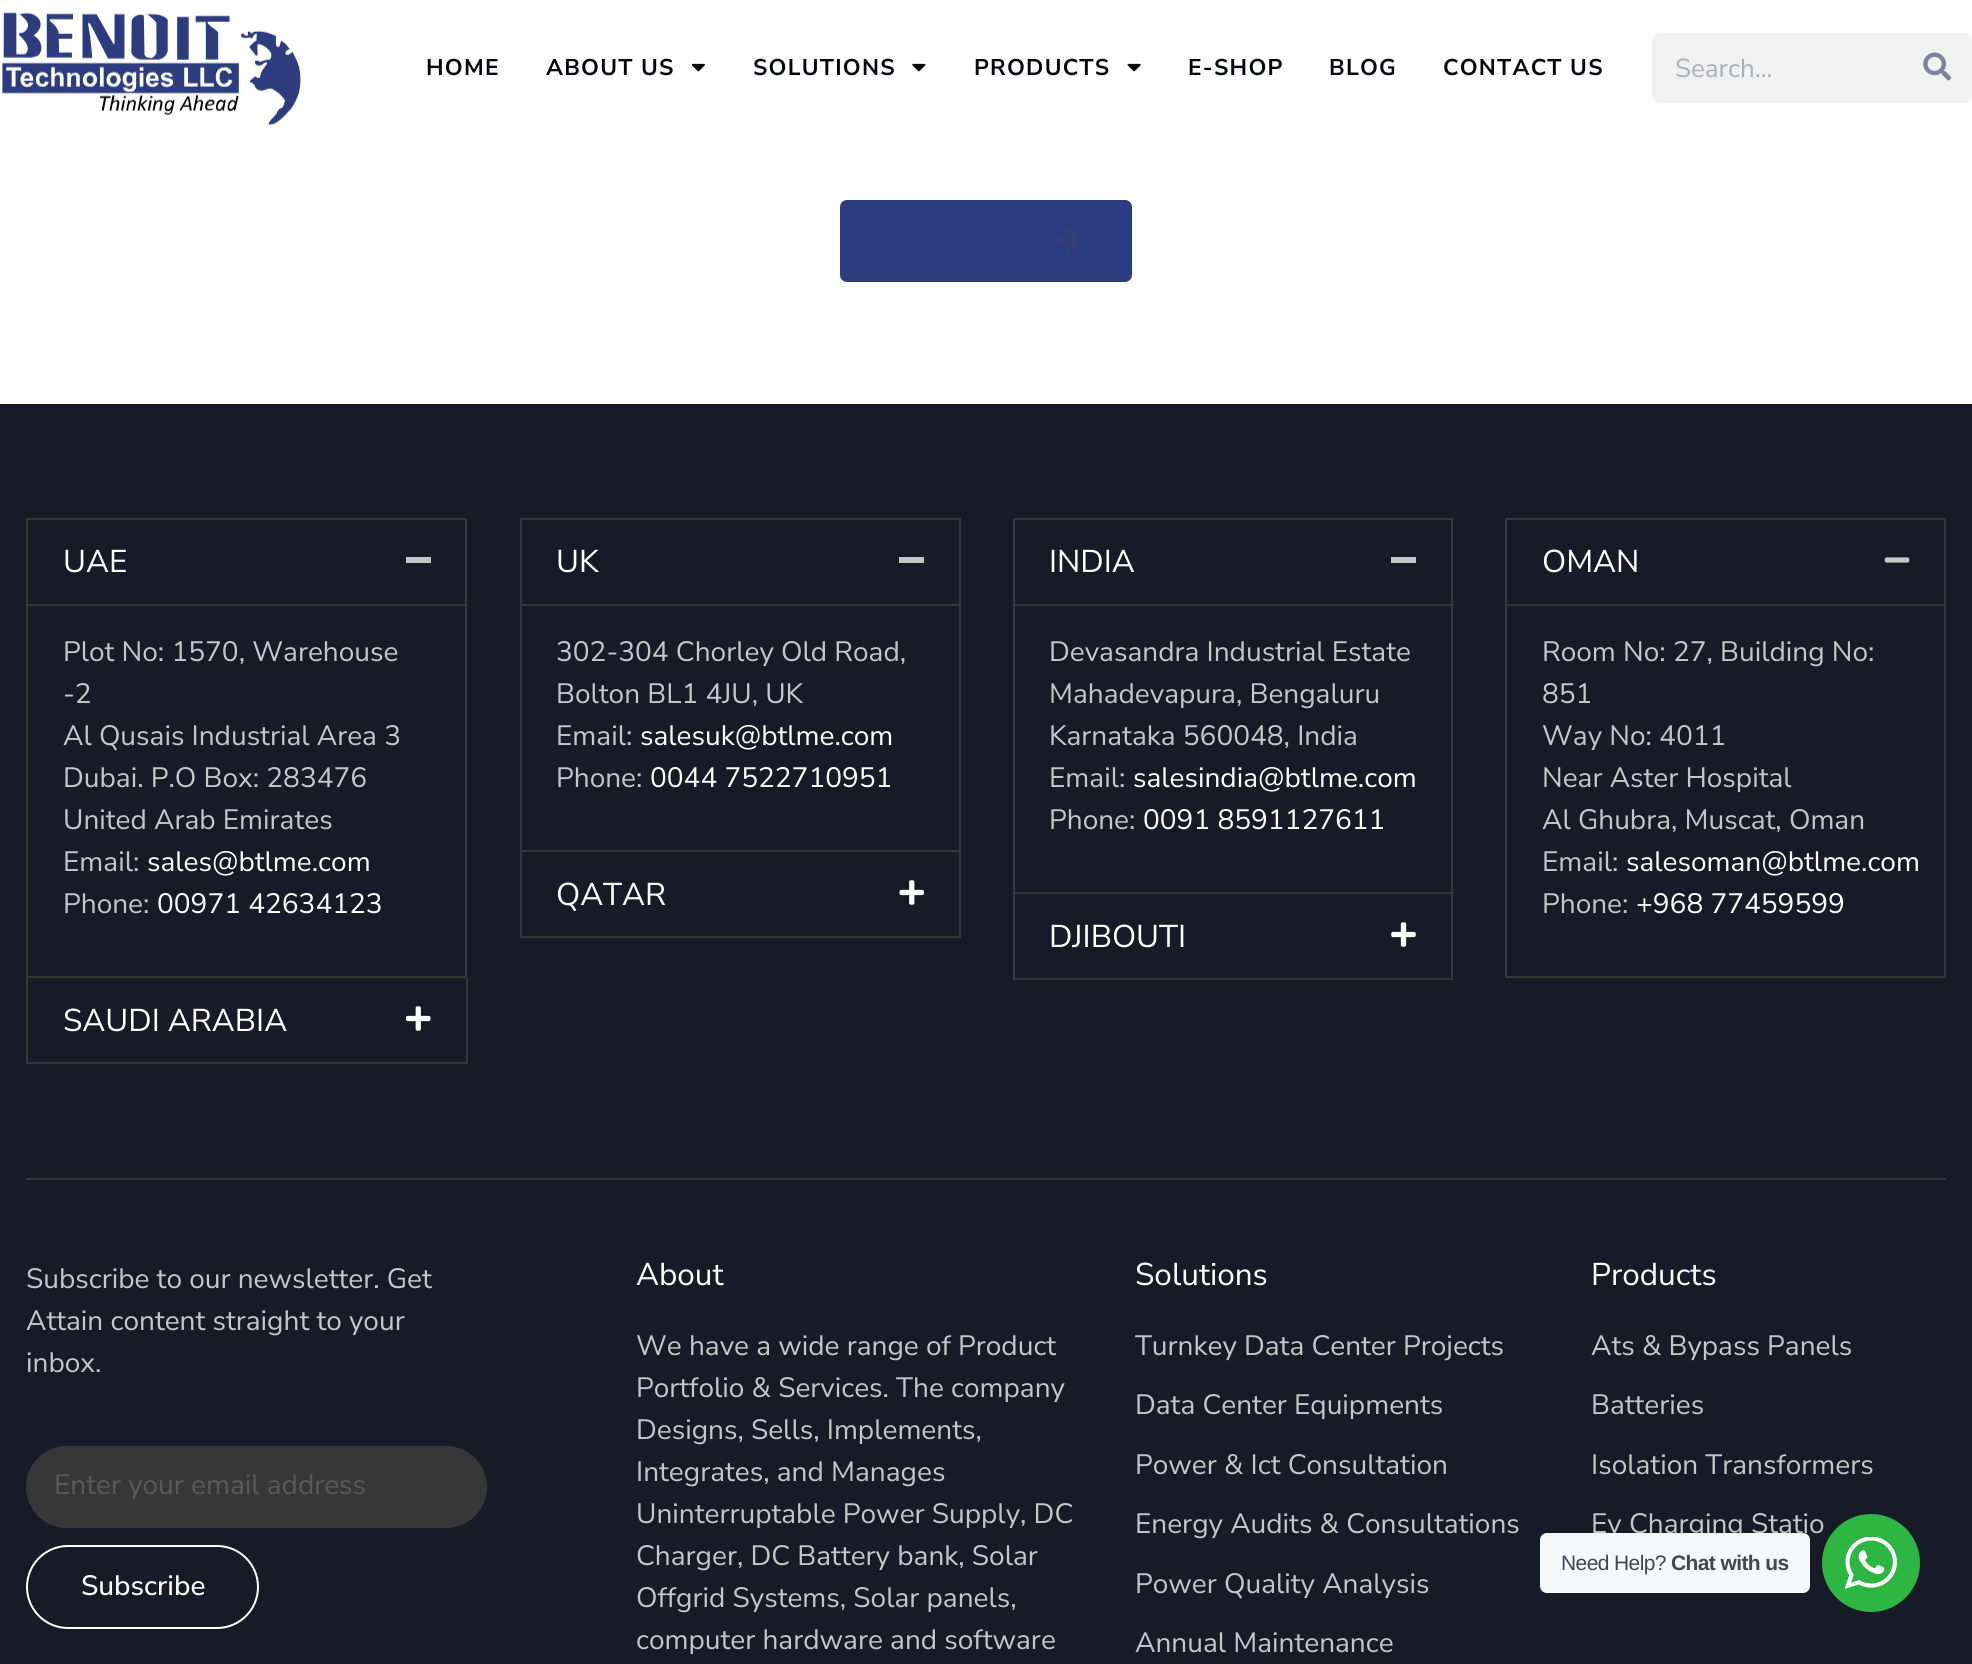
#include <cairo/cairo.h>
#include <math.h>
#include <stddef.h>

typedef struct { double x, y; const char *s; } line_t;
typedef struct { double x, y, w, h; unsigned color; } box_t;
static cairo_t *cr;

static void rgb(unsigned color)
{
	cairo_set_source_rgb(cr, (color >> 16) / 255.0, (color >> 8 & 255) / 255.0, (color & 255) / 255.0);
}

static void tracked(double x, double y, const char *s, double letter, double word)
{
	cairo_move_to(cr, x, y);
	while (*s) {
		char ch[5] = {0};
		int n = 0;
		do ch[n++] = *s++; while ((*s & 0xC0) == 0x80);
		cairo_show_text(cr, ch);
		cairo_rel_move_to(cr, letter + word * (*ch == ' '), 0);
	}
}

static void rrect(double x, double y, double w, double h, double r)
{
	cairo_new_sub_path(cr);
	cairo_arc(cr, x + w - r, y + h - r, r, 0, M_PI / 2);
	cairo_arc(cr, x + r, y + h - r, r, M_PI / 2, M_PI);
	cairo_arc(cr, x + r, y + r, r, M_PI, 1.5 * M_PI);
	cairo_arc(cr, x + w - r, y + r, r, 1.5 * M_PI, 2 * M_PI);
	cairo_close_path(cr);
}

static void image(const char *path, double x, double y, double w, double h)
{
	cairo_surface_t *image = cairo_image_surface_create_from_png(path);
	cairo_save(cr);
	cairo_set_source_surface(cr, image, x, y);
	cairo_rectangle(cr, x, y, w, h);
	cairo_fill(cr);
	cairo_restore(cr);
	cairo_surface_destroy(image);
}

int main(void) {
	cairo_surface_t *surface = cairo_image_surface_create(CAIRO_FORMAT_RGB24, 1972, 1664);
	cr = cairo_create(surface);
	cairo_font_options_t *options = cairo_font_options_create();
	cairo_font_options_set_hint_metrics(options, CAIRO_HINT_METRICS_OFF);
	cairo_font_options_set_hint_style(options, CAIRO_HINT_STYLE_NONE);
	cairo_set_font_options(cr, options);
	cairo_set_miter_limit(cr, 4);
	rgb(0xffffff);
	cairo_paint(cr);
	image("img/1.png", 2, 12, 299, 113);
	image("img/2.png", 691, 63, 14, 9);
	image("img/3.png", 912, 63, 14, 9);
	image("img/4.png", 1127, 63, 14, 9);
	rgb(0xf1f1f1);
	rrect(1652, 33, 320, 70, 9);
	cairo_fill(cr);
	cairo_new_path(cr);
	cairo_move_to(cr, 1902, 33);
	cairo_line_to(cr, 1963, 33);
	cairo_curve_to(cr, 1968, 33, 1972, 37, 1972, 42);
	cairo_line_to(cr, 1972, 94);
	cairo_curve_to(cr, 1972, 99, 1968, 103, 1963, 103);
	cairo_line_to(cr, 1902, 103);
	cairo_close_path(cr);
	cairo_fill(cr);
	image("img/5.png", 1923, 52, 29, 29);
	rgb(0x2b3c7f);
	rrect(840, 200, 292, 82, 7);
	cairo_fill(cr);
	image("img/6.png", 1055, 228, 25, 24);
	rgb(0x161b27);
	cairo_rectangle(cr, 0, 404, 1972, 1260);
	cairo_fill(cr);
	cairo_rectangle(cr, 27, 519, 439, 458);
	rgb(0x383737);
	cairo_stroke(cr);
	{
		static const box_t items[] = {
			{406, 557, 25, 6, 0xc6c6c6},
			{28, 604, 438, 2, 0x383737},
			{466, 978, 2, 86, 0x383737},
			{26, 1062, 441, 2, 0x383737},
			{26, 978, 2, 86, 0x383737},
		};
		for (size_t i = 0; i < sizeof items / sizeof *items; i++) {
			rgb(items[i].color);
			cairo_rectangle(cr, items[i].x, items[i].y, items[i].w, items[i].h);
			cairo_fill(cr);
		}
	}
	image("img/7.png", 406, 1006, 25, 25);
	cairo_rectangle(cr, 521, 519, 439, 332);
	cairo_stroke(cr);
	{
		static const box_t items[] = {
			{899, 557, 25, 6, 0xc6c6c6},
			{522, 604, 437, 2, 0x383737},
			{959, 852, 2, 86, 0x383737},
			{520, 936, 441, 2, 0x383737},
			{520, 852, 2, 86, 0x383737},
		};
		for (size_t i = 0; i < sizeof items / sizeof *items; i++) {
			rgb(items[i].color);
			cairo_rectangle(cr, items[i].x, items[i].y, items[i].w, items[i].h);
			cairo_fill(cr);
		}
	}
	image("img/8.png", 899, 880, 25, 25);
	cairo_rectangle(cr, 1014, 519, 438, 374);
	cairo_stroke(cr);
	{
		static const box_t items[] = {
			{1391, 557, 25, 6, 0xc6c6c6},
			{1015, 604, 436, 2, 0x383737},
			{1451, 894, 2, 86, 0x383737},
			{1013, 978, 440, 2, 0x383737},
			{1013, 894, 2, 86, 0x383737},
		};
		for (size_t i = 0; i < sizeof items / sizeof *items; i++) {
			rgb(items[i].color);
			cairo_rectangle(cr, items[i].x, items[i].y, items[i].w, items[i].h);
			cairo_fill(cr);
		}
	}
	image("img/9.png", 1391, 922, 25, 25);
	cairo_rectangle(cr, 1506, 519, 439, 458);
	cairo_stroke(cr);
	image("img/10.png", 1884, 557, 26, 6);
	cairo_rectangle(cr, 1507, 604, 437, 2);
	cairo_fill(cr);
	cairo_rectangle(cr, 26, 1178, 1920, 2);
	cairo_fill(cr);
	rrect(26, 1446, 461, 82, 41);
	cairo_fill(cr);
	rrect(27, 1546, 231, 82, 41);
	rgb(0xffffff);
	cairo_stroke(cr);
	cairo_select_font_face(cr, "Nunito Sans", CAIRO_FONT_SLANT_NORMAL, CAIRO_FONT_WEIGHT_BOLD);
	cairo_set_font_size(cr, 22.75);
	rgb(0x04060d);
	{
		static const line_t items[] = {
			{426, 75, "HOME"},
			{546, 75, "ABOUT US"},
			{753, 75, "SOLUTIONS"},
			{974, 75, "PRODUCTS"},
			{1188, 75, "E-SHOP"},
			{1329, 75, "BLOG"},
			{1443, 75, "CONTACT US"},
		};
		for (size_t i = 0; i < sizeof items / sizeof *items; i++) {
			tracked(items[i].x, items[i].y, items[i].s, 1.25, 0);
		}
	}
	cairo_select_font_face(cr, "Nunito Sans", CAIRO_FONT_SLANT_NORMAL, CAIRO_FONT_WEIGHT_NORMAL);
	cairo_set_font_size(cr, 26);
	rgb(0xabafbc);
	cairo_move_to(cr, 1675, 77);
	cairo_show_text(cr, "Search...");
	cairo_set_font_size(cr, 31.5);
	rgb(0xffffff);
	cairo_move_to(cr, 63, 572);
	cairo_show_text(cr, "UAE");
	cairo_set_font_size(cr, 28);
	rgb(0xc6c6c6);
	{
		static const line_t items[] = {
			{63, 661, "Plot No: 1570, Warehouse"},
			{63, 703, "-2"},
			{63, 745, "Al Qusais Industrial Area 3"},
			{63, 787, "Dubai. P.O Box: 283476"},
			{63, 829, "United Arab Emirates"},
			{63, 871, "Email:"},
		};
		for (size_t i = 0; i < sizeof items / sizeof *items; i++) {
			cairo_move_to(cr, items[i].x, items[i].y);
			cairo_show_text(cr, items[i].s);
		}
	}
	rgb(0xffffff);
	cairo_move_to(cr, 147, 871);
	cairo_show_text(cr, "sales@btlme.com");
	rgb(0xc6c6c6);
	cairo_move_to(cr, 63, 913);
	cairo_show_text(cr, "Phone:");
	rgb(0xffffff);
	cairo_move_to(cr, 157, 913);
	cairo_show_text(cr, "00971 42634123");
	cairo_set_font_size(cr, 31.5);
	cairo_move_to(cr, 63, 1031);
	cairo_show_text(cr, "SAUDI ARABIA");
	cairo_move_to(cr, 556, 572);
	cairo_show_text(cr, "UK");
	cairo_set_font_size(cr, 28);
	rgb(0xc6c6c6);
	{
		static const line_t items[] = {
			{556, 661, "302-304 Chorley Old Road,"},
			{556, 703, "Bolton BL1 4JU, UK"},
			{556, 745, "Email:"},
		};
		for (size_t i = 0; i < sizeof items / sizeof *items; i++) {
			cairo_move_to(cr, items[i].x, items[i].y);
			cairo_show_text(cr, items[i].s);
		}
	}
	rgb(0xffffff);
	cairo_move_to(cr, 640, 745);
	cairo_show_text(cr, "salesuk@btlme.com");
	rgb(0xc6c6c6);
	cairo_move_to(cr, 556, 787);
	cairo_show_text(cr, "Phone:");
	rgb(0xffffff);
	cairo_move_to(cr, 650, 787);
	cairo_show_text(cr, "0044 7522710951");
	cairo_set_font_size(cr, 31.5);
	cairo_move_to(cr, 556, 905);
	cairo_show_text(cr, "QATAR");
	cairo_move_to(cr, 1049, 572);
	cairo_show_text(cr, "INDIA");
	cairo_set_font_size(cr, 28);
	rgb(0xc6c6c6);
	{
		static const line_t items[] = {
			{1049, 661, "Devasandra Industrial Estate"},
			{1049, 703, "Mahadevapura, Bengaluru"},
			{1049, 745, "Karnataka 560048, India"},
			{1049, 787, "Email:"},
		};
		for (size_t i = 0; i < sizeof items / sizeof *items; i++) {
			cairo_move_to(cr, items[i].x, items[i].y);
			cairo_show_text(cr, items[i].s);
		}
	}
	rgb(0xffffff);
	cairo_move_to(cr, 1133, 787);
	cairo_show_text(cr, "salesindia@btlme.com");
	rgb(0xc6c6c6);
	cairo_move_to(cr, 1049, 829);
	cairo_show_text(cr, "Phone:");
	rgb(0xffffff);
	cairo_move_to(cr, 1143, 829);
	cairo_show_text(cr, "0091 8591127611");
	cairo_set_font_size(cr, 31.5);
	cairo_move_to(cr, 1049, 947);
	cairo_show_text(cr, "DJIBOUTI");
	cairo_move_to(cr, 1542, 572);
	cairo_show_text(cr, "OMAN");
	cairo_set_font_size(cr, 28);
	rgb(0xc6c6c6);
	{
		static const line_t items[] = {
			{1542, 661, "Room No: 27, Building No:"},
			{1542, 703, "851"},
			{1542, 745, "Way No: 4011"},
			{1542, 787, "Near Aster Hospital"},
			{1542, 829, "Al Ghubra, Muscat, Oman"},
			{1542, 871, "Email:"},
		};
		for (size_t i = 0; i < sizeof items / sizeof *items; i++) {
			cairo_move_to(cr, items[i].x, items[i].y);
			cairo_show_text(cr, items[i].s);
		}
	}
	rgb(0xffffff);
	cairo_move_to(cr, 1626, 871);
	cairo_show_text(cr, "salesoman@btlme.com");
	rgb(0xc6c6c6);
	cairo_move_to(cr, 1542, 913);
	cairo_show_text(cr, "Phone:");
	rgb(0xffffff);
	cairo_move_to(cr, 1636, 913);
	cairo_show_text(cr, "+968 77459599");
	rgb(0xc6c6c6);
	{
		static const line_t items[] = {
			{26, 1288, "Subscribe to our newsletter. Get"},
			{26, 1330, "Attain content straight to your"},
			{26, 1372, "inbox."},
		};
		for (size_t i = 0; i < sizeof items / sizeof *items; i++) {
			cairo_move_to(cr, items[i].x, items[i].y);
			cairo_show_text(cr, items[i].s);
		}
	}
	rgb(0x585959);
	cairo_move_to(cr, 54, 1494);
	cairo_show_text(cr, "Enter your email address");
	cairo_select_font_face(cr, "Nunito Sans Medium", CAIRO_FONT_SLANT_NORMAL, CAIRO_FONT_WEIGHT_NORMAL);
	rgb(0xffffff);
	cairo_move_to(cr, 81, 1595);
	cairo_show_text(cr, "Subscribe");
	cairo_select_font_face(cr, "Nunito Sans", CAIRO_FONT_SLANT_NORMAL, CAIRO_FONT_WEIGHT_NORMAL);
	cairo_set_font_size(cr, 31.5);
	cairo_move_to(cr, 636, 1285);
	cairo_show_text(cr, "About");
	cairo_set_font_size(cr, 28);
	rgb(0xc6c6c6);
	{
		static const line_t items[] = {
			{636, 1355, "We have a wide range of Product"},
			{636, 1397, "Portfolio & Services. The company"},
			{636, 1439, "Designs, Sells, Implements,"},
			{636, 1481, "Integrates, and Manages"},
			{636, 1523, "Uninterruptable Power Supply, DC"},
			{636, 1565, "Charger, DC Battery bank, Solar"},
			{636, 1607, "Offgrid Systems, Solar panels,"},
			{636, 1649, "computer hardware and software"},
		};
		for (size_t i = 0; i < sizeof items / sizeof *items; i++) {
			cairo_move_to(cr, items[i].x, items[i].y);
			cairo_show_text(cr, items[i].s);
		}
	}
	cairo_set_font_size(cr, 31.5);
	rgb(0xffffff);
	cairo_move_to(cr, 1135, 1285);
	cairo_show_text(cr, "Solutions");
	cairo_set_font_size(cr, 28);
	rgb(0xc6c6c6);
	{
		static const line_t items[] = {
			{1135, 1355, "Turnkey Data Center Projects"},
			{1135, 1414, "Data Center Equipments"},
			{1135, 1474, "Power & Ict Consultation"},
			{1135, 1533, "Energy Audits & Consultations"},
			{1135, 1593, "Power Quality Analysis"},
			{1135, 1652, "Annual Maintenance"},
		};
		for (size_t i = 0; i < sizeof items / sizeof *items; i++) {
			cairo_move_to(cr, items[i].x, items[i].y);
			cairo_show_text(cr, items[i].s);
		}
	}
	cairo_set_font_size(cr, 31.5);
	rgb(0xffffff);
	cairo_move_to(cr, 1591, 1285);
	cairo_show_text(cr, "Products");
	cairo_set_font_size(cr, 28);
	rgb(0xc6c6c6);
	{
		static const line_t items[] = {
			{1591, 1355, "Ats & Bypass Panels"},
			{1591, 1414, "Batteries"},
			{1591, 1474, "Isolation Transformers"},
			{1591, 1533, "Ev Charging Statio"},
		};
		for (size_t i = 0; i < sizeof items / sizeof *items; i++) {
			cairo_move_to(cr, items[i].x, items[i].y);
			cairo_show_text(cr, items[i].s);
		}
	}
	rgb(0xf5f7f9);
	rrect(1540, 1533, 270, 60, 7);
	cairo_fill(cr);
	cairo_select_font_face(cr, "Liberation Sans", CAIRO_FONT_SLANT_NORMAL, CAIRO_FONT_WEIGHT_NORMAL);
	cairo_set_font_size(cr, 21);
	rgb(0x43474e);
	tracked(1561, 1570, "Need Help?", -0.6, 0);
	cairo_select_font_face(cr, "Liberation Sans", CAIRO_FONT_SLANT_NORMAL, CAIRO_FONT_WEIGHT_BOLD);
	tracked(1671, 1570, "Chat with us", -0.6, 0);
	rgb(0x2db742);
	cairo_new_path(cr);
	cairo_arc(cr, 1871, 1563, 49, 0, 2 * M_PI);
	cairo_fill(cr);
	image("img/11.png", 1845, 1537, 52, 52);
	cairo_surface_write_to_png(surface, "page.png");
	cairo_font_options_destroy(options);
	cairo_destroy(cr);
	cairo_surface_destroy(surface);
	return 0;
}
